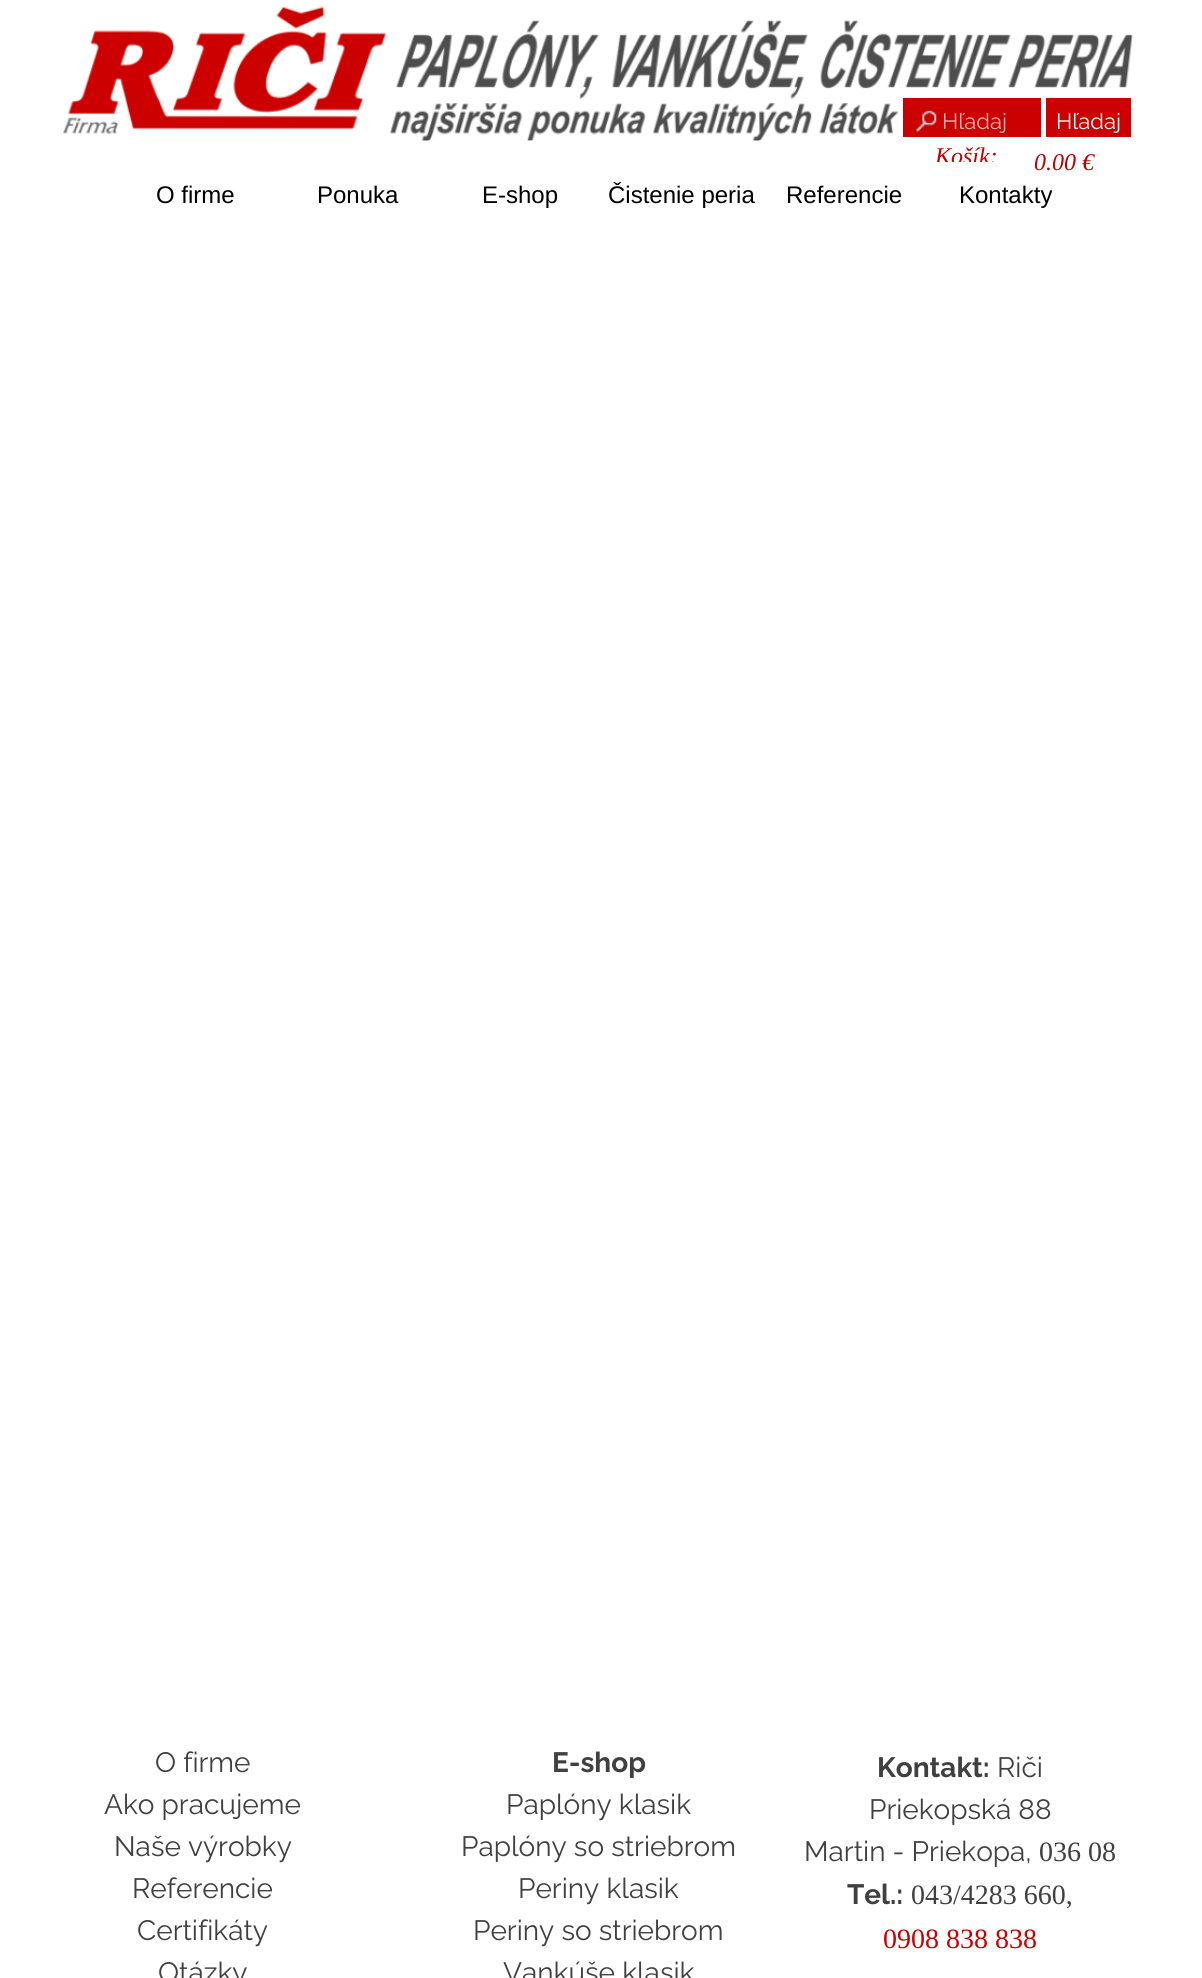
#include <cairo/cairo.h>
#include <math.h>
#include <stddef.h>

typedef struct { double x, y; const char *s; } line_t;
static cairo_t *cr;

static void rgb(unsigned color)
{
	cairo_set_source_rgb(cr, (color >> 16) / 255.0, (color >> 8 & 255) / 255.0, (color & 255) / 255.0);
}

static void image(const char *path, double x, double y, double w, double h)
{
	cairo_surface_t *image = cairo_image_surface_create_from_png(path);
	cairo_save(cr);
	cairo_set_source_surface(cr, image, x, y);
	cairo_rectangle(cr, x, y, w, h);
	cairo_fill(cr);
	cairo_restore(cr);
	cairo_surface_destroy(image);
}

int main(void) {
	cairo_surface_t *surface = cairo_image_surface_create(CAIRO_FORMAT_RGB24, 1202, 1978);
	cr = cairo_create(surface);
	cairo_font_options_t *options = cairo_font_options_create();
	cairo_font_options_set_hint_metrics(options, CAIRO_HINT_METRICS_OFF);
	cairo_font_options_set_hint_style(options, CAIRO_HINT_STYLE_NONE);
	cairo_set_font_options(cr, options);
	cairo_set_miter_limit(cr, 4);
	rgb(0xffffff);
	cairo_paint(cr);
	image("img/1.png", 63, 6, 1070, 135);
	rgb(0xcc0000);
	cairo_rectangle(cr, 903, 98, 138, 39);
	cairo_fill(cr);
	image("img/2.png", 915, 109, 23, 24);
	cairo_rectangle(cr, 1046, 98, 85, 39);
	cairo_fill(cr);
	cairo_select_font_face(cr, "Raleway", CAIRO_FONT_SLANT_NORMAL, CAIRO_FONT_WEIGHT_NORMAL);
	cairo_set_font_size(cr, 22);
	rgb(0xf0b3b3);
	cairo_move_to(cr, 942, 129);
	cairo_show_text(cr, "Hľadaj");
	rgb(0xffffff);
	cairo_move_to(cr, 1056, 129);
	cairo_show_text(cr, "Hľadaj");
	cairo_save(cr);
	cairo_rectangle(cr, 935, 132, 93, 30);
	cairo_clip(cr);
	cairo_select_font_face(cr, "Liberation Serif", CAIRO_FONT_SLANT_ITALIC, CAIRO_FONT_WEIGHT_NORMAL);
	cairo_set_font_size(cr, 24);
	rgb(0xc00000);
	cairo_move_to(cr, 935, 164);
	cairo_show_text(cr, "Košík:");
	cairo_restore(cr);
	cairo_select_font_face(cr, "Liberation Serif", CAIRO_FONT_SLANT_ITALIC, CAIRO_FONT_WEIGHT_NORMAL);
	cairo_set_font_size(cr, 24);
	rgb(0xc00000);
	cairo_move_to(cr, 1034, 170);
	cairo_show_text(cr, "0.00 €");
	cairo_select_font_face(cr, "Liberation Sans", CAIRO_FONT_SLANT_NORMAL, CAIRO_FONT_WEIGHT_NORMAL);
	rgb(0x000000);
	{
		static const line_t items[] = {
			{156, 203, "O firme"},
			{317, 203, "Ponuka"},
			{482, 203, "E-shop"},
			{608, 203, "Čistenie peria"},
			{786, 203, "Referencie"},
			{959, 203, "Kontakty"},
		};
		for (size_t i = 0; i < sizeof items / sizeof *items; i++) {
			cairo_move_to(cr, items[i].x, items[i].y);
			cairo_show_text(cr, items[i].s);
		}
	}
	cairo_select_font_face(cr, "Raleway", CAIRO_FONT_SLANT_NORMAL, CAIRO_FONT_WEIGHT_NORMAL);
	cairo_set_font_size(cr, 28);
	rgb(0x404040);
	{
		static const line_t items[] = {
			{155, 1772, "O firme"},
			{104, 1814, "Ako pracujeme"},
			{114, 1856, "Naše výrobky"},
			{132, 1898, "Referencie"},
			{137, 1940, "Certifikáty"},
			{158, 1982, "Otázky"},
		};
		for (size_t i = 0; i < sizeof items / sizeof *items; i++) {
			cairo_move_to(cr, items[i].x, items[i].y);
			cairo_show_text(cr, items[i].s);
		}
	}
	cairo_select_font_face(cr, "Raleway", CAIRO_FONT_SLANT_NORMAL, CAIRO_FONT_WEIGHT_BOLD);
	cairo_move_to(cr, 552, 1772);
	cairo_show_text(cr, "E-shop");
	cairo_select_font_face(cr, "Raleway", CAIRO_FONT_SLANT_NORMAL, CAIRO_FONT_WEIGHT_NORMAL);
	{
		static const line_t items[] = {
			{506, 1814, "Paplóny klasik"},
			{461, 1856, "Paplóny so striebrom"},
			{518, 1898, "Periny klasik"},
			{473, 1940, "Periny so striebrom"},
			{503, 1982, "Vankúše klasik"},
		};
		for (size_t i = 0; i < sizeof items / sizeof *items; i++) {
			cairo_move_to(cr, items[i].x, items[i].y);
			cairo_show_text(cr, items[i].s);
		}
	}
	cairo_select_font_face(cr, "Raleway", CAIRO_FONT_SLANT_NORMAL, CAIRO_FONT_WEIGHT_BOLD);
	cairo_move_to(cr, 877, 1777);
	cairo_show_text(cr, "Kontakt:");
	cairo_select_font_face(cr, "Raleway", CAIRO_FONT_SLANT_NORMAL, CAIRO_FONT_WEIGHT_NORMAL);
	{
		static const line_t items[] = {
			{997, 1777, "Riči"},
			{869, 1819, "Priekopská 88"},
			{804, 1861, "Martin - Priekopa,"},
		};
		for (size_t i = 0; i < sizeof items / sizeof *items; i++) {
			cairo_move_to(cr, items[i].x, items[i].y);
			cairo_show_text(cr, items[i].s);
		}
	}
	cairo_select_font_face(cr, "Liberation Serif", CAIRO_FONT_SLANT_NORMAL, CAIRO_FONT_WEIGHT_NORMAL);
	cairo_move_to(cr, 1039, 1861);
	cairo_show_text(cr, "036 08");
	cairo_select_font_face(cr, "Raleway", CAIRO_FONT_SLANT_NORMAL, CAIRO_FONT_WEIGHT_BOLD);
	cairo_move_to(cr, 847, 1904);
	cairo_show_text(cr, "Tel.:");
	cairo_select_font_face(cr, "Liberation Serif", CAIRO_FONT_SLANT_NORMAL, CAIRO_FONT_WEIGHT_NORMAL);
	cairo_move_to(cr, 911, 1904);
	cairo_show_text(cr, "043/4283 660,");
	rgb(0xcc0000);
	cairo_move_to(cr, 883, 1948);
	cairo_show_text(cr, "0908 838 838");
	cairo_surface_write_to_png(surface, "page.png");
	cairo_font_options_destroy(options);
	cairo_destroy(cr);
	cairo_surface_destroy(surface);
	return 0;
}
